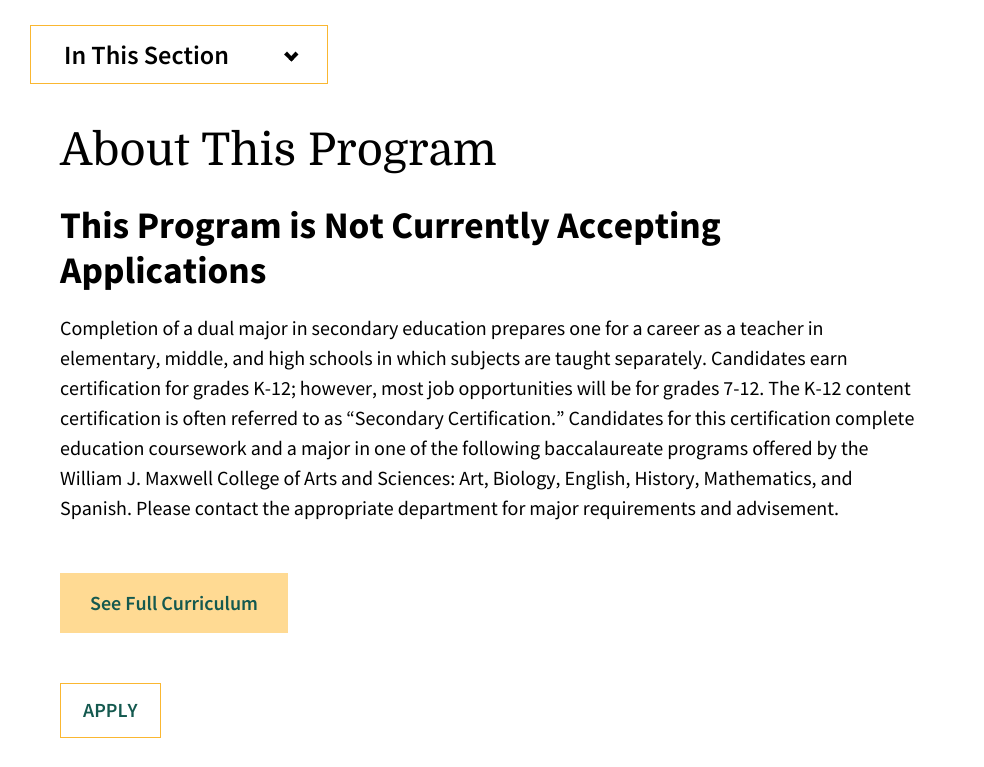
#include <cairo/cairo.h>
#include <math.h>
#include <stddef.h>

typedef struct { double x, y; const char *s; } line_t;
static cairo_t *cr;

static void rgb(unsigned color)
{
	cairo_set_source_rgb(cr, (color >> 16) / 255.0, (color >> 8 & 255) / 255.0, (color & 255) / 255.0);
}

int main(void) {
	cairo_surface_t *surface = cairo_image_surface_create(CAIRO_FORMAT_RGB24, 984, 767);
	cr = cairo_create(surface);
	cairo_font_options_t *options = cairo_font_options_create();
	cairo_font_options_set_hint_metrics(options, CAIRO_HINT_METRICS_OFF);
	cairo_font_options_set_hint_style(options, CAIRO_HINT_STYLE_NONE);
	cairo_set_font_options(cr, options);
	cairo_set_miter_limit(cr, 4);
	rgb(0xffffff);
	cairo_paint(cr);
	cairo_rectangle(cr, 30.5, 25.5, 297, 58);
	rgb(0xfab731);
	cairo_set_line_width(cr, 1);
	cairo_stroke(cr);
	rgb(0x000000);
	cairo_new_path(cr);
	cairo_move_to(cr, 291.5, 61.5);
	cairo_line_to(cr, 284, 54.5);
	cairo_line_to(cr, 287, 51.5);
	cairo_line_to(cr, 294, 59);
	cairo_close_path(cr);
	cairo_fill(cr);
	cairo_new_path(cr);
	cairo_move_to(cr, 291.5, 61.5);
	cairo_line_to(cr, 288.5, 59);
	cairo_line_to(cr, 295.5, 51.5);
	cairo_line_to(cr, 298.5, 54.5);
	cairo_close_path(cr);
	cairo_fill(cr);
	rgb(0xffda93);
	cairo_rectangle(cr, 60, 573, 228, 60);
	cairo_fill(cr);
	cairo_rectangle(cr, 60.5, 683.5, 100, 54);
	rgb(0xfab731);
	cairo_stroke(cr);
	cairo_select_font_face(cr, "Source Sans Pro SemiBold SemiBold", CAIRO_FONT_SLANT_NORMAL, CAIRO_FONT_WEIGHT_NORMAL);
	cairo_set_font_size(cr, 26.25);
	rgb(0x000000);
	cairo_move_to(cr, 64, 64);
	cairo_show_text(cr, "In This Section");
	cairo_select_font_face(cr, "Domine", CAIRO_FONT_SLANT_NORMAL, CAIRO_FONT_WEIGHT_NORMAL);
	cairo_set_font_size(cr, 45);
	cairo_move_to(cr, 60, 165);
	cairo_show_text(cr, "About This Program");
	cairo_select_font_face(cr, "Source Sans Pro", CAIRO_FONT_SLANT_NORMAL, CAIRO_FONT_WEIGHT_BOLD);
	cairo_set_font_size(cr, 37.5);
	cairo_move_to(cr, 60, 238);
	cairo_show_text(cr, "This Program is Not Currently Accepting");
	cairo_move_to(cr, 60, 283);
	cairo_show_text(cr, "Applications");
	cairo_select_font_face(cr, "Source Sans Pro", CAIRO_FONT_SLANT_NORMAL, CAIRO_FONT_WEIGHT_NORMAL);
	cairo_set_font_size(cr, 20);
	{
		static const line_t items[] = {
			{60, 335, "Completion of a dual major in secondary education prepares one for a career as a teacher in"},
			{60, 365, "elementary, middle, and high schools in which subjects are taught separately. Candidates earn"},
			{60, 395, "certification for grades K-12; however, most job opportunities will be for grades 7-12. The K-12 content"},
			{60, 425, "certification is often referred to as “Secondary Certification.” Candidates for this certification complete"},
			{60, 455, "education coursework and a major in one of the following baccalaureate programs offered by the"},
			{60, 485, "William J. Maxwell College of Arts and Sciences: Art, Biology, English, History, Mathematics, and"},
			{60, 515, "Spanish. Please contact the appropriate department for major requirements and advisement."},
		};
		for (size_t i = 0; i < sizeof items / sizeof *items; i++) {
			cairo_move_to(cr, items[i].x, items[i].y);
			cairo_show_text(cr, items[i].s);
		}
	}
	cairo_select_font_face(cr, "Source Sans Pro SemiBold SemiBold", CAIRO_FONT_SLANT_NORMAL, CAIRO_FONT_WEIGHT_NORMAL);
	rgb(0x14594f);
	cairo_move_to(cr, 90, 610);
	cairo_show_text(cr, "See Full Curriculum");
	cairo_move_to(cr, 83, 717);
	cairo_show_text(cr, "APPLY");
	cairo_surface_write_to_png(surface, "page.png");
	cairo_font_options_destroy(options);
	cairo_destroy(cr);
	cairo_surface_destroy(surface);
	return 0;
}
